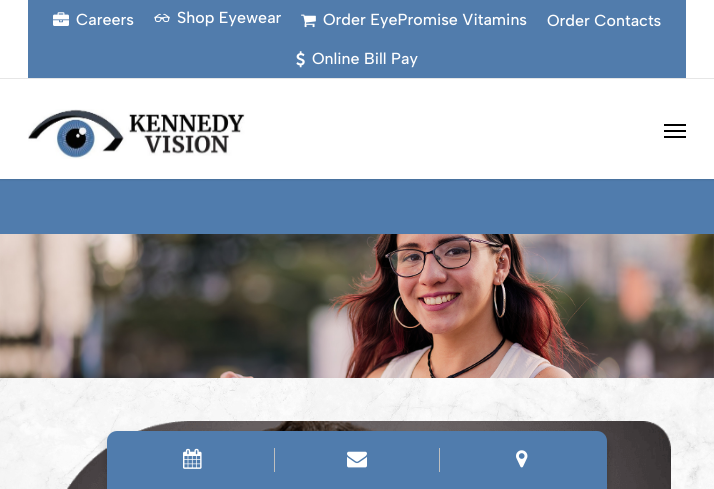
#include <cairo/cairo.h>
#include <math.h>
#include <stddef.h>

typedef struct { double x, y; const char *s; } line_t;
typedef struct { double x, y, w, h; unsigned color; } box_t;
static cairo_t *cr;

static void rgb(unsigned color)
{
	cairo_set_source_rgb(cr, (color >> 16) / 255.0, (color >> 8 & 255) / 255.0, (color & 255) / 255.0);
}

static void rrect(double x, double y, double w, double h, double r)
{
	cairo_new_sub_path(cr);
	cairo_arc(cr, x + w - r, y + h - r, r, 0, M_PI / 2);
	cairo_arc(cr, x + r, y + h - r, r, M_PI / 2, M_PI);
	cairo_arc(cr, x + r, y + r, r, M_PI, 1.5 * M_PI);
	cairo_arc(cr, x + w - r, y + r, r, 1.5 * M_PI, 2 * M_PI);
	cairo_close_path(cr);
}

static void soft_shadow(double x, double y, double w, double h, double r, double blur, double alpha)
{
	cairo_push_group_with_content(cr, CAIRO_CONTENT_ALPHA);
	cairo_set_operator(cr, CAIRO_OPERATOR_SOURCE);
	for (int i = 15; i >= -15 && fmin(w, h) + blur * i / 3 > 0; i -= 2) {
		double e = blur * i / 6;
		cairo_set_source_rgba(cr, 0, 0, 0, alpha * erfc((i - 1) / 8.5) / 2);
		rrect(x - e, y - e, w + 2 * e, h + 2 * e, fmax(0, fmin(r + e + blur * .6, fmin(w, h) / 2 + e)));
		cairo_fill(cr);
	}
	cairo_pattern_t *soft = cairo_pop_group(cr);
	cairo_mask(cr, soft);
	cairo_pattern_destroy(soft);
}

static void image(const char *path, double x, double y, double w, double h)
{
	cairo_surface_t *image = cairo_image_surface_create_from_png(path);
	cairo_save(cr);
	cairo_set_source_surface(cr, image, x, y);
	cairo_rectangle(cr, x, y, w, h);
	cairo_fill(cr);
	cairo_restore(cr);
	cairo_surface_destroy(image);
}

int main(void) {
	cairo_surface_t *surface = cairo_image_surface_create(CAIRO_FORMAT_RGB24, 714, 489);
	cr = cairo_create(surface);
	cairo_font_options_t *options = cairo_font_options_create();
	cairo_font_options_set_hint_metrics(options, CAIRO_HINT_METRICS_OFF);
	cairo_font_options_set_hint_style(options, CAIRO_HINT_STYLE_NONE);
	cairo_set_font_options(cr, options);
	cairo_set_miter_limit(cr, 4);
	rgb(0xffffff);
	cairo_paint(cr);
	rgb(0x507cad);
	cairo_rectangle(cr, 0, 179, 714, 55);
	cairo_fill(cr);
	rgb(0x000000);
	soft_shadow(0, 0, 714, 179, 0, 1.5, 0.22);
	{
		static const box_t items[] = {
			{0, 0, 714, 179, 0xffffff},
			{0, 78, 714, 1, 0xe6e6e6},
			{28, 0, 658, 78, 0x517cac},
		};
		for (size_t i = 0; i < sizeof items / sizeof *items; i++) {
			rgb(items[i].color);
			cairo_rectangle(cr, items[i].x, items[i].y, items[i].w, items[i].h);
			cairo_fill(cr);
		}
	}
	image("img/1.png", 53, 12, 16, 14);
	image("img/2.png", 154, 13, 16, 10);
	image("img/3.png", 301, 14, 15, 14);
	image("img/4.png", 296, 51, 9, 17);
	image("img/5.png", 28, 109, 217, 50);
	{
		static const box_t items[] = {
			{664, 124, 22, 2, 0x000000},
			{664, 136, 22, 2, 0x000000},
			{664, 130, 22, 2, 0x000000},
		};
		for (size_t i = 0; i < sizeof items / sizeof *items; i++) {
			rgb(items[i].color);
			cairo_rectangle(cr, items[i].x, items[i].y, items[i].w, items[i].h);
			cairo_fill(cr);
		}
	}
	image("img/6.png", 0, 378, 714, 111);
	image("img/7.png", 0, 234, 714, 144);
	image("img/8.png", 67, 421, 604, 68);
	rgb(0x000000);
	soft_shadow(107, 437, 500, 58, 10, 5, 0.24);
	rgb(0x507cad);
	cairo_new_path(cr);
	cairo_move_to(cr, 117, 431);
	cairo_line_to(cr, 597, 431);
	cairo_curve_to(cr, 602.5, 431, 607, 435.5, 607, 441);
	cairo_line_to(cr, 607, 489);
	cairo_line_to(cr, 107, 489);
	cairo_line_to(cr, 107, 441);
	cairo_curve_to(cr, 107, 435.5, 111.5, 431, 117, 431);
	cairo_close_path(cr);
	cairo_fill(cr);
	image("img/9.png", 183, 448, 19, 21);
	rgb(0xbfbfbf);
	cairo_rectangle(cr, 274, 448, 1, 24);
	cairo_fill(cr);
	image("img/10.png", 347, 451, 20, 17);
	cairo_rectangle(cr, 439, 448, 1, 24);
	cairo_fill(cr);
	image("img/11.png", 516, 450, 12, 18);
	cairo_select_font_face(cr, "Albert Sans Medium", CAIRO_FONT_SLANT_NORMAL, CAIRO_FONT_WEIGHT_NORMAL);
	cairo_set_font_size(cr, 16);
	rgb(0xffffff);
	{
		static const line_t items[] = {
			{76, 25, "Careers"},
			{177, 23, "Shop Eyewear"},
			{323, 25, "Order EyePromise Vitamins"},
			{547, 26, "Order Contacts"},
			{312, 64, "Online Bill Pay"},
		};
		for (size_t i = 0; i < sizeof items / sizeof *items; i++) {
			cairo_move_to(cr, items[i].x, items[i].y);
			cairo_show_text(cr, items[i].s);
		}
	}
	cairo_surface_write_to_png(surface, "page.png");
	cairo_font_options_destroy(options);
	cairo_destroy(cr);
	cairo_surface_destroy(surface);
	return 0;
}
